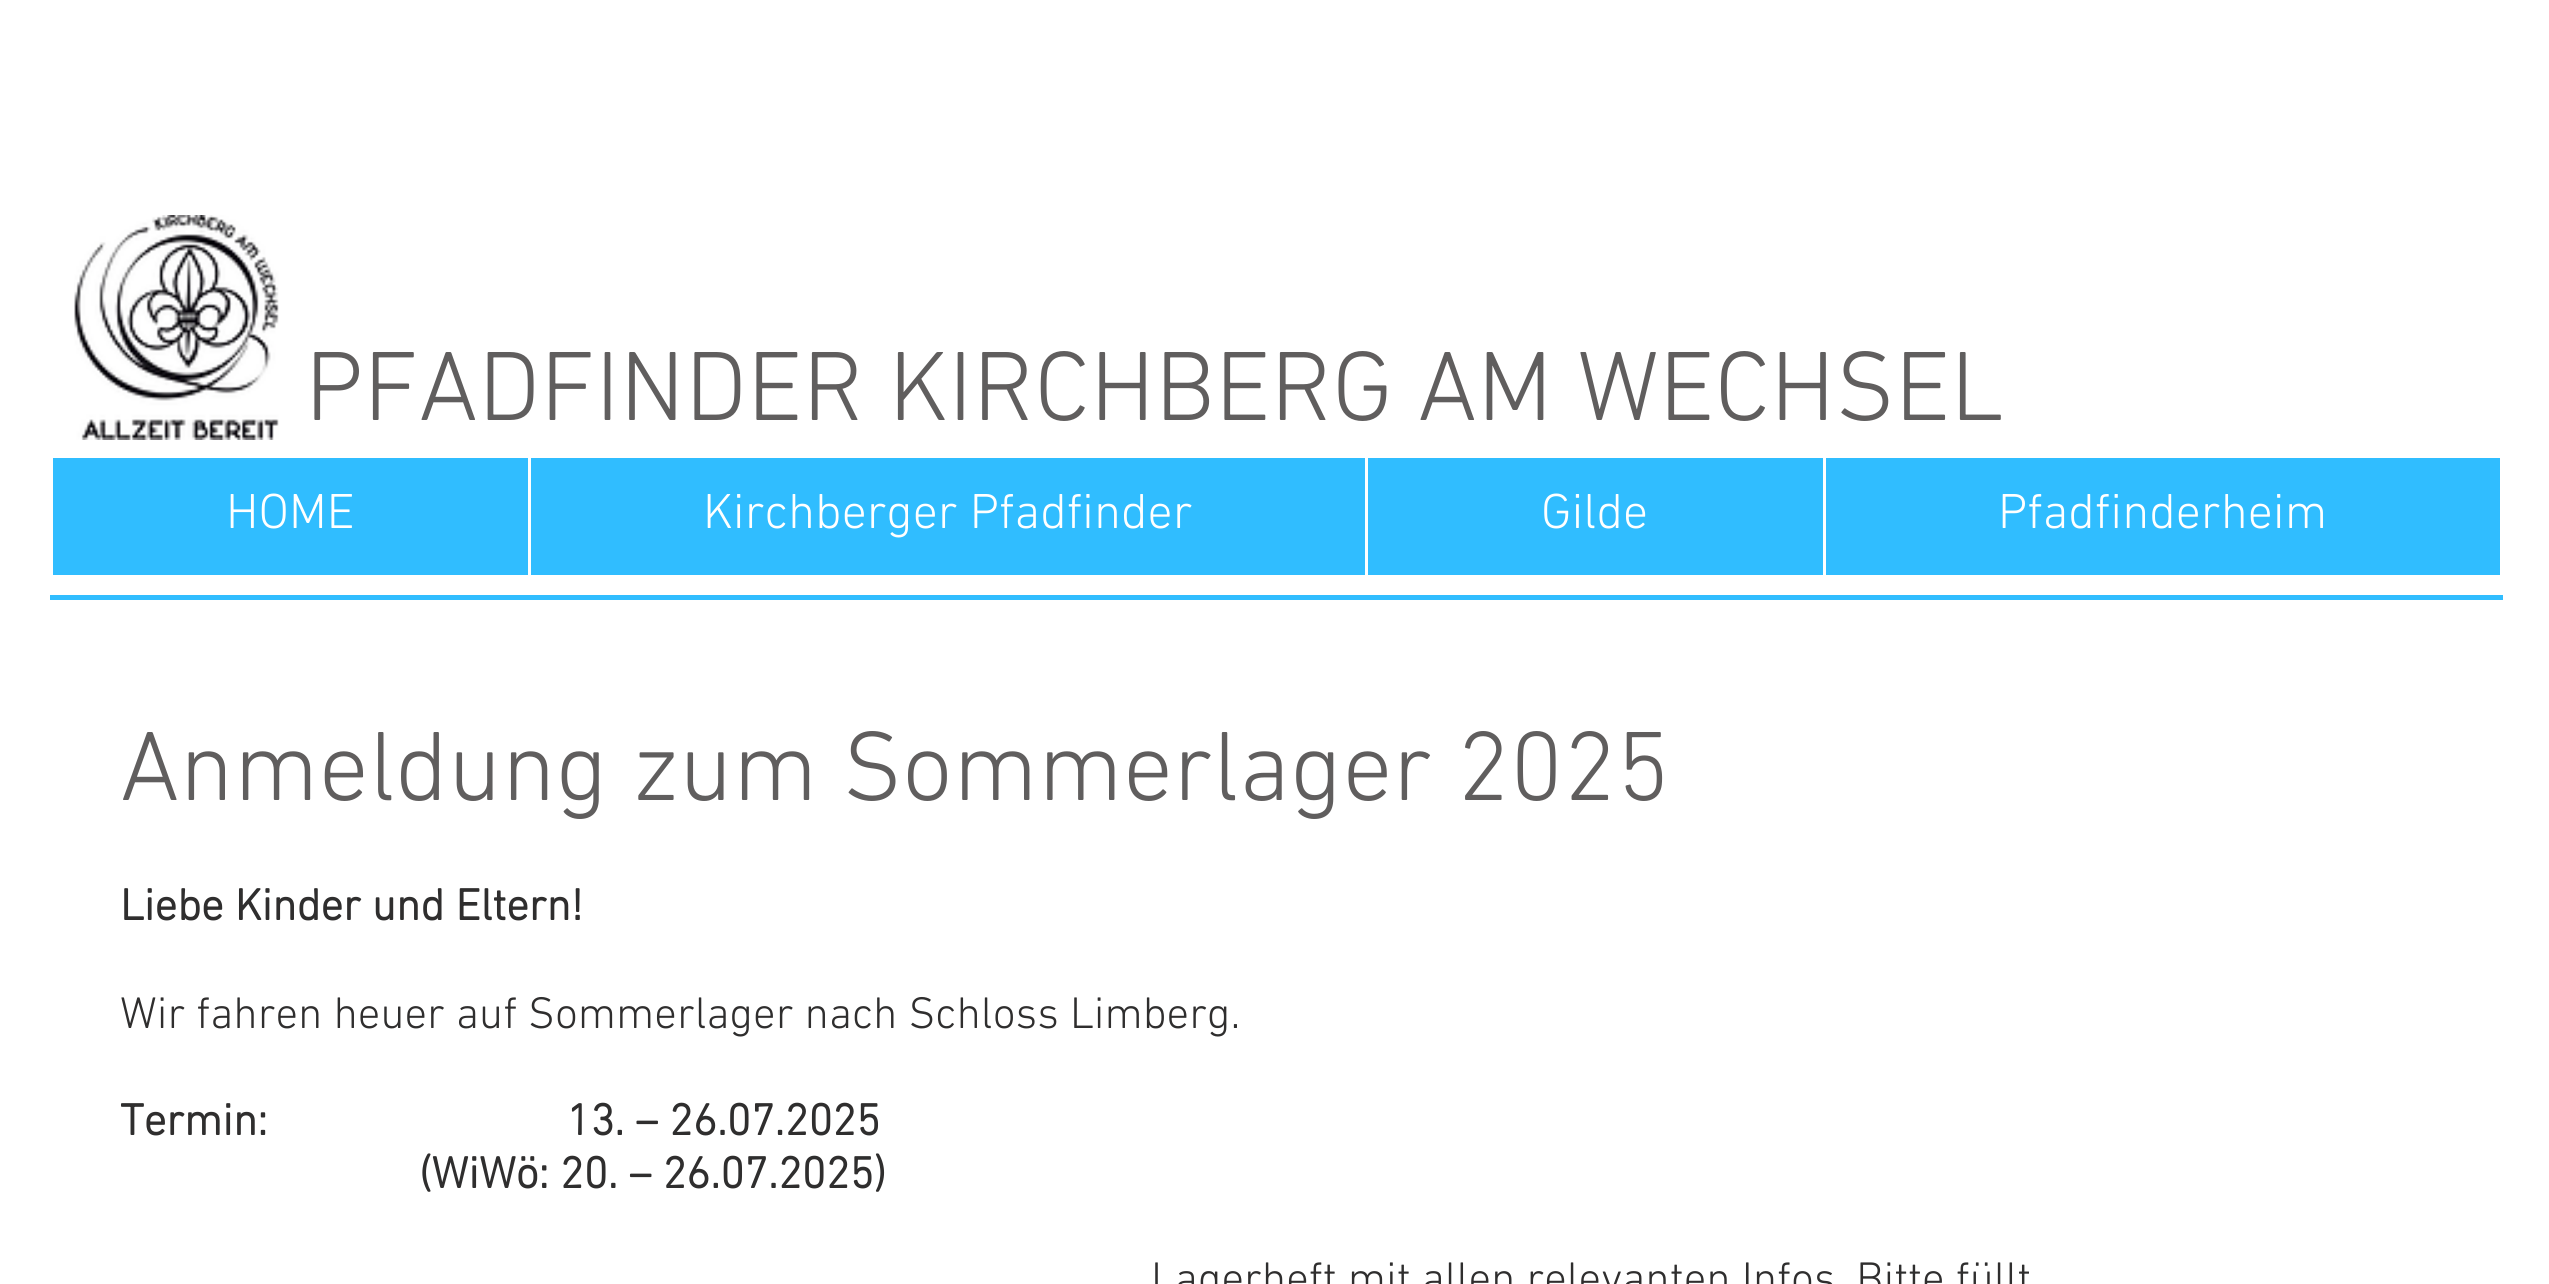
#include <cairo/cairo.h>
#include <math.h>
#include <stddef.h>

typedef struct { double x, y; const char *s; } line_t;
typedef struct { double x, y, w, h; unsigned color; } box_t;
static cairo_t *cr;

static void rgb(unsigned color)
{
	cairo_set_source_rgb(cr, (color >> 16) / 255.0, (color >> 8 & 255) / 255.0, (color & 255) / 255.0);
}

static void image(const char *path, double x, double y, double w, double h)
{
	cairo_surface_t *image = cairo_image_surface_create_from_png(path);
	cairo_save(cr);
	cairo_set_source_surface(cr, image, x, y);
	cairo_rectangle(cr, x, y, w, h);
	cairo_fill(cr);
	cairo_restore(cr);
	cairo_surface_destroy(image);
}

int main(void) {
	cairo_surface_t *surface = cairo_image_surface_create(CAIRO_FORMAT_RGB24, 2549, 1284);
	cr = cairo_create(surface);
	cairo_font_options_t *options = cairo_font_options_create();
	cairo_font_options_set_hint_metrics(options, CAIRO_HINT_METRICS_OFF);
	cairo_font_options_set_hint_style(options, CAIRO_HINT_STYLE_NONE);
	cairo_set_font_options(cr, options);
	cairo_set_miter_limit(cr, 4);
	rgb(0xffffff);
	cairo_paint(cr);
	image("img/1.png", 74, 215, 205, 225);
	{
		static const box_t items[] = {
			{53, 458, 2447, 117, 0x30bdff},
			{528, 458, 3, 117, 0xffffff},
			{1365, 458, 3, 117, 0xffffff},
			{1823, 458, 3, 117, 0xffffff},
			{50, 595, 2453, 5, 0x30bdff},
		};
		for (size_t i = 0; i < sizeof items / sizeof *items; i++) {
			rgb(items[i].color);
			cairo_rectangle(cr, items[i].x, items[i].y, items[i].w, items[i].h);
			cairo_fill(cr);
		}
	}
	cairo_select_font_face(cr, "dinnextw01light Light", CAIRO_FONT_SLANT_NORMAL, CAIRO_FONT_WEIGHT_NORMAL);
	cairo_set_font_size(cr, 100);
	rgb(0x605e5e);
	cairo_move_to(cr, 305, 420);
	cairo_show_text(cr, "PFADFINDER KIRCHBERG AM WECHSEL");
	cairo_set_font_size(cr, 50);
	rgb(0xffffff);
	{
		static const line_t items[] = {
			{226, 528, "HOME"},
			{703, 528, "Kirchberger Pfadfinder"},
			{1541, 528, "Gilde"},
			{1998, 528, "Pfadfinderheim"},
		};
		for (size_t i = 0; i < sizeof items / sizeof *items; i++) {
			cairo_move_to(cr, items[i].x, items[i].y);
			cairo_show_text(cr, items[i].s);
		}
	}
	cairo_set_font_size(cr, 100);
	rgb(0x605e5e);
	cairo_move_to(cr, 120, 800);
	cairo_show_text(cr, "Anmeldung zum Sommerlager 2025");
	cairo_select_font_face(cr, "dinnextw01light", CAIRO_FONT_SLANT_NORMAL, CAIRO_FONT_WEIGHT_BOLD);
	cairo_set_font_size(cr, 45);
	rgb(0x2f2e2e);
	cairo_move_to(cr, 120, 920);
	cairo_show_text(cr, "Liebe Kinder und Eltern!");
	cairo_select_font_face(cr, "dinnextw01light Light", CAIRO_FONT_SLANT_NORMAL, CAIRO_FONT_WEIGHT_NORMAL);
	cairo_move_to(cr, 120, 1028);
	cairo_show_text(cr, "Wir fahren heuer auf Sommerlager nach Schloss Limberg.");
	cairo_select_font_face(cr, "dinnextw01light", CAIRO_FONT_SLANT_NORMAL, CAIRO_FONT_WEIGHT_BOLD);
	cairo_move_to(cr, 120, 1135);
	cairo_show_text(cr, "Termin:                           13. – 26.07.2025");
	cairo_move_to(cr, 419, 1188);
	cairo_show_text(cr, "(WiWö: 20. – 26.07.2025)");
	cairo_select_font_face(cr, "dinnextw01light Light", CAIRO_FONT_SLANT_NORMAL, CAIRO_FONT_WEIGHT_NORMAL);
	cairo_move_to(cr, 1151, 1293);
	cairo_show_text(cr, "Lagerheft mit allen relevanten Infos. Bitte füllt");
	cairo_surface_write_to_png(surface, "page.png");
	cairo_font_options_destroy(options);
	cairo_destroy(cr);
	cairo_surface_destroy(surface);
	return 0;
}
